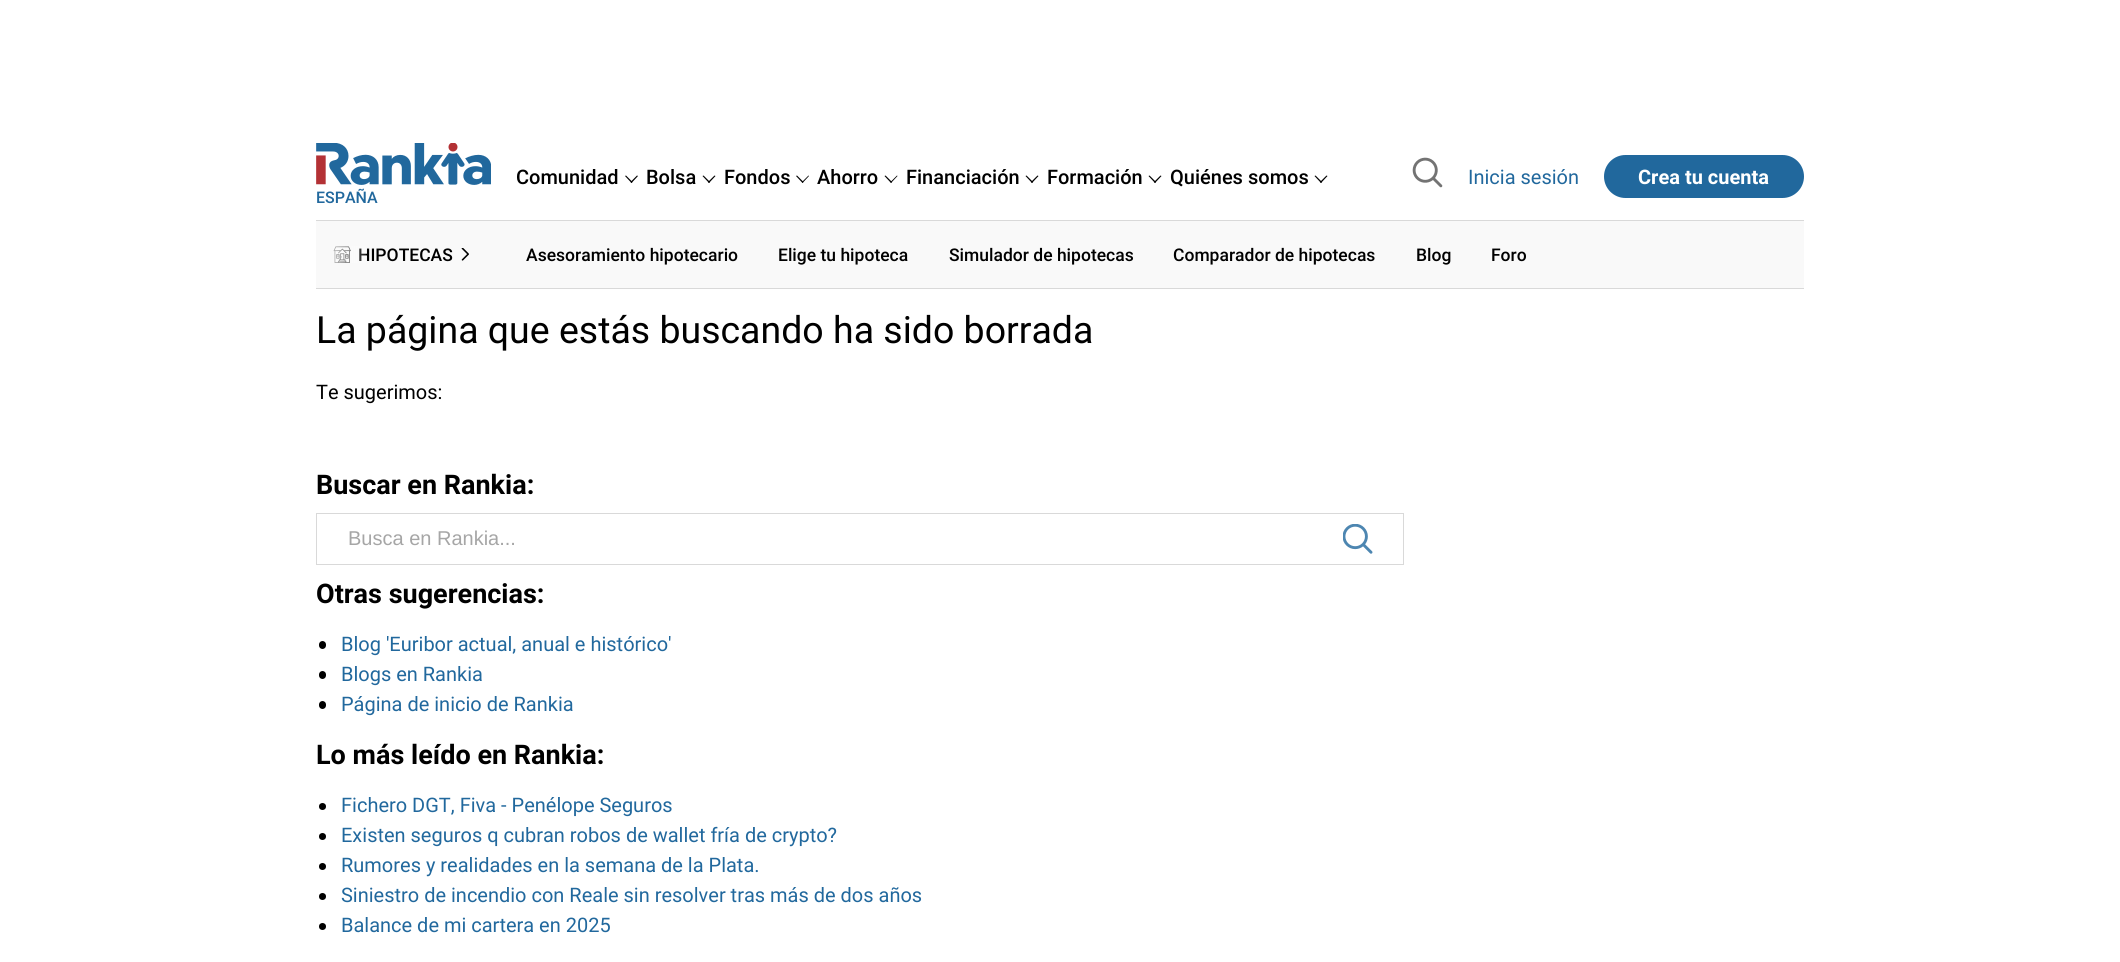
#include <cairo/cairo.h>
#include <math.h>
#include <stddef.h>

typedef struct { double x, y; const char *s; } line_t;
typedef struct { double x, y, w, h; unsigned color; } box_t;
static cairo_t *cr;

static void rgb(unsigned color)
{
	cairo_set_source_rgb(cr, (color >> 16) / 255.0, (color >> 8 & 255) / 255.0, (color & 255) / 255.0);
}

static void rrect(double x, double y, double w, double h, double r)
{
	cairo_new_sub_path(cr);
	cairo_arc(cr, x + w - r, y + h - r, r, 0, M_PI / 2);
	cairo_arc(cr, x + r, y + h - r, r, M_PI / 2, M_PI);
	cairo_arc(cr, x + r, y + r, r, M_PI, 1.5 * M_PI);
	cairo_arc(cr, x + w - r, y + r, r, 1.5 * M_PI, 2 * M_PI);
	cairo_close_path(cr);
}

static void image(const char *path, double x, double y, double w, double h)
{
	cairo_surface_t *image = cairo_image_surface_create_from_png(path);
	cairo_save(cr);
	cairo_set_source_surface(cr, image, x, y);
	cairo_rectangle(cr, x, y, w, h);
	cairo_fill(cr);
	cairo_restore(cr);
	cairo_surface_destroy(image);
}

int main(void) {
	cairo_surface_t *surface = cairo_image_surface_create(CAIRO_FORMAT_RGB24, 2120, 962);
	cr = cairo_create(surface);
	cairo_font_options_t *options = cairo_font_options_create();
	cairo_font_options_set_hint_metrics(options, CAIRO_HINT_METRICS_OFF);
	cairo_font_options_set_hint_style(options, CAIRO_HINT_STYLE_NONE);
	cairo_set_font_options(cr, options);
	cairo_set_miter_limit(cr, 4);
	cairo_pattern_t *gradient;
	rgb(0xffffff);
	cairo_paint(cr);
	rgb(0x000000);
	cairo_new_path(cr);
	cairo_move_to(cr, 637, 175.5);
	cairo_line_to(cr, 638, 176);
	cairo_line_to(cr, 631.5, 183);
	cairo_line_to(cr, 630.5, 182);
	cairo_close_path(cr);
	cairo_fill(cr);
	cairo_new_path(cr);
	cairo_move_to(cr, 626, 175.5);
	cairo_line_to(cr, 632.5, 182);
	cairo_line_to(cr, 631.5, 183);
	cairo_line_to(cr, 625, 176);
	cairo_close_path(cr);
	cairo_fill(cr);
	cairo_new_path(cr);
	cairo_move_to(cr, 714.5, 175.5);
	cairo_line_to(cr, 715.5, 176);
	cairo_line_to(cr, 709, 183);
	cairo_line_to(cr, 708, 182);
	cairo_close_path(cr);
	cairo_fill(cr);
	cairo_new_path(cr);
	cairo_move_to(cr, 703.5, 175.5);
	cairo_line_to(cr, 710, 182);
	cairo_line_to(cr, 709, 183);
	cairo_line_to(cr, 702.5, 176);
	cairo_close_path(cr);
	cairo_fill(cr);
	cairo_new_path(cr);
	cairo_move_to(cr, 808.5, 175.5);
	cairo_line_to(cr, 809, 176);
	cairo_line_to(cr, 802.5, 183);
	cairo_line_to(cr, 802, 182);
	cairo_close_path(cr);
	cairo_fill(cr);
	cairo_new_path(cr);
	cairo_move_to(cr, 797, 175.5);
	cairo_line_to(cr, 803.5, 182);
	cairo_line_to(cr, 802.5, 183);
	cairo_line_to(cr, 796, 176);
	cairo_close_path(cr);
	cairo_fill(cr);
	cairo_new_path(cr);
	cairo_move_to(cr, 897, 175.5);
	cairo_line_to(cr, 897.5, 176);
	cairo_line_to(cr, 891, 183);
	cairo_line_to(cr, 890.5, 182);
	cairo_close_path(cr);
	cairo_fill(cr);
	cairo_new_path(cr);
	cairo_move_to(cr, 885.5, 175.5);
	cairo_line_to(cr, 892, 182);
	cairo_line_to(cr, 891, 183);
	cairo_line_to(cr, 884.5, 176);
	cairo_close_path(cr);
	cairo_fill(cr);
	cairo_new_path(cr);
	cairo_move_to(cr, 1037.5, 175.5);
	cairo_line_to(cr, 1038.5, 176);
	cairo_line_to(cr, 1032, 183);
	cairo_line_to(cr, 1031, 182);
	cairo_close_path(cr);
	cairo_fill(cr);
	cairo_new_path(cr);
	cairo_move_to(cr, 1026.5, 175.5);
	cairo_line_to(cr, 1033, 182);
	cairo_line_to(cr, 1032, 183);
	cairo_line_to(cr, 1025.5, 176);
	cairo_close_path(cr);
	cairo_fill(cr);
	cairo_new_path(cr);
	cairo_move_to(cr, 1160.5, 175.5);
	cairo_line_to(cr, 1161.5, 176);
	cairo_line_to(cr, 1155, 183);
	cairo_line_to(cr, 1154, 182);
	cairo_close_path(cr);
	cairo_fill(cr);
	cairo_new_path(cr);
	cairo_move_to(cr, 1149.5, 175.5);
	cairo_line_to(cr, 1156, 182);
	cairo_line_to(cr, 1155, 183);
	cairo_line_to(cr, 1148.5, 176);
	cairo_close_path(cr);
	cairo_fill(cr);
	cairo_new_path(cr);
	cairo_move_to(cr, 1326.5, 175.5);
	cairo_line_to(cr, 1327.5, 176);
	cairo_line_to(cr, 1321, 183);
	cairo_line_to(cr, 1320, 182);
	cairo_close_path(cr);
	cairo_fill(cr);
	cairo_new_path(cr);
	cairo_move_to(cr, 1315.5, 175.5);
	cairo_line_to(cr, 1322, 182);
	cairo_line_to(cr, 1321, 183);
	cairo_line_to(cr, 1314.5, 176);
	cairo_close_path(cr);
	cairo_fill(cr);
	image("img/1.png", 316, 143, 175, 42);
	image("img/2.png", 1412, 157, 31, 31);
	rgb(0x21689d);
	rrect(1605.5, 156.5, 197, 40, 20);
	cairo_fill_preserve(cr);
	cairo_set_line_width(cr, 3);
	cairo_stroke(cr);
	{
		static const box_t items[] = {
			{316, 221, 1488, 67, 0xf9f9f9},
			{316, 220, 1488, 1, 0xd9d9d9},
			{316, 288, 1488, 1, 0xd9d9d9},
		};
		for (size_t i = 0; i < sizeof items / sizeof *items; i++) {
			rgb(items[i].color);
			cairo_rectangle(cr, items[i].x, items[i].y, items[i].w, items[i].h);
			cairo_fill(cr);
		}
	}
	image("img/3.png", 333, 246, 18, 17);
	image("img/4.png", 461, 248, 8, 13);
	cairo_rectangle(cr, 316.5, 513.5, 1087, 51);
	cairo_set_line_width(cr, 1);
	cairo_stroke(cr);
	image("img/5.png", 1343, 524, 30, 30);
	rgb(0x000000);
	rrect(319, 641, 7, 8, 3.5);
	cairo_fill(cr);
	rrect(319, 671, 7, 8, 3.5);
	cairo_fill(cr);
	rrect(319, 701, 7, 8, 3.5);
	cairo_fill(cr);
	cairo_arc(cr, 322.5, 806.5, 3.5, 0, 2 * M_PI);
	cairo_fill(cr);
	cairo_arc(cr, 322.5, 836.5, 3.5, 0, 2 * M_PI);
	cairo_fill(cr);
	cairo_arc(cr, 322.5, 866.5, 3.5, 0, 2 * M_PI);
	cairo_fill(cr);
	cairo_arc(cr, 322.5, 896.5, 3.5, 0, 2 * M_PI);
	cairo_fill(cr);
	cairo_arc(cr, 322.5, 926.5, 3.5, 0, 2 * M_PI);
	cairo_fill(cr);
	cairo_select_font_face(cr, "Roboto Medium", CAIRO_FONT_SLANT_NORMAL, CAIRO_FONT_WEIGHT_NORMAL);
	cairo_set_font_size(cr, 20);
	{
		static const line_t items[] = {
			{516, 184, "Comunidad"},
			{646, 184, "Bolsa"},
			{724, 184, "Fondos"},
			{817, 184, "Ahorro"},
			{906, 184, "Financiación"},
			{1047, 184, "Formación"},
			{1170, 184, "Quiénes somos"},
		};
		for (size_t i = 0; i < sizeof items / sizeof *items; i++) {
			cairo_move_to(cr, items[i].x, items[i].y);
			cairo_show_text(cr, items[i].s);
		}
	}
	cairo_set_font_size(cr, 16);
	rgb(0x21689d);
	cairo_move_to(cr, 316, 203);
	cairo_show_text(cr, "ESPAÑA");
	cairo_select_font_face(cr, "Roboto", CAIRO_FONT_SLANT_NORMAL, CAIRO_FONT_WEIGHT_NORMAL);
	cairo_set_font_size(cr, 20);
	cairo_move_to(cr, 1468, 184);
	cairo_show_text(cr, "Inicia sesión");
	cairo_select_font_face(cr, "Roboto", CAIRO_FONT_SLANT_NORMAL, CAIRO_FONT_WEIGHT_BOLD);
	rgb(0xffffff);
	cairo_move_to(cr, 1638, 184);
	cairo_show_text(cr, "Crea tu cuenta");
	cairo_select_font_face(cr, "Roboto Medium", CAIRO_FONT_SLANT_NORMAL, CAIRO_FONT_WEIGHT_NORMAL);
	cairo_set_font_size(cr, 17.5);
	rgb(0x000000);
	cairo_move_to(cr, 358, 261);
	cairo_show_text(cr, "HIPOTECAS");
	gradient = cairo_pattern_create_linear(316, 251, 366, 251);
	cairo_pattern_add_color_stop_rgba(gradient, 0, 0.976, 0.976, 0.976, 1);
	cairo_pattern_add_color_stop_rgba(gradient, 1, 1, 1, 1, 0.1);
	cairo_set_source(cr, gradient);
	cairo_pattern_destroy(gradient);
	cairo_rectangle(cr, 333, 246, 33, 17);
	cairo_fill(cr);
	rgb(0x000000);
	{
		static const line_t items[] = {
			{526, 261, "Asesoramiento hipotecario"},
			{778, 261, "Elige tu hipoteca"},
			{949, 261, "Simulador de hipotecas"},
			{1173, 261, "Comparador de hipotecas"},
			{1416, 261, "Blog"},
			{1491, 261, "Foro"},
		};
		for (size_t i = 0; i < sizeof items / sizeof *items; i++) {
			cairo_move_to(cr, items[i].x, items[i].y);
			cairo_show_text(cr, items[i].s);
		}
	}
	cairo_select_font_face(cr, "Roboto", CAIRO_FONT_SLANT_NORMAL, CAIRO_FONT_WEIGHT_NORMAL);
	cairo_set_font_size(cr, 37.5);
	cairo_move_to(cr, 316, 343);
	cairo_show_text(cr, "La página que estás buscando ha sido borrada");
	cairo_set_font_size(cr, 20);
	cairo_move_to(cr, 316, 399);
	cairo_show_text(cr, "Te sugerimos:");
	cairo_select_font_face(cr, "Roboto", CAIRO_FONT_SLANT_NORMAL, CAIRO_FONT_WEIGHT_BOLD);
	cairo_set_font_size(cr, 27);
	cairo_move_to(cr, 316, 494);
	cairo_show_text(cr, "Buscar en Rankia:");
	cairo_select_font_face(cr, "Liberation Sans", CAIRO_FONT_SLANT_NORMAL, CAIRO_FONT_WEIGHT_NORMAL);
	cairo_set_font_size(cr, 20);
	rgb(0xa6a6a6);
	cairo_move_to(cr, 348, 545);
	cairo_show_text(cr, "Busca en Rankia...");
	cairo_select_font_face(cr, "Roboto", CAIRO_FONT_SLANT_NORMAL, CAIRO_FONT_WEIGHT_BOLD);
	cairo_set_font_size(cr, 27);
	rgb(0x000000);
	cairo_move_to(cr, 316, 603);
	cairo_show_text(cr, "Otras sugerencias:");
	cairo_select_font_face(cr, "Roboto", CAIRO_FONT_SLANT_NORMAL, CAIRO_FONT_WEIGHT_NORMAL);
	cairo_set_font_size(cr, 20);
	rgb(0x21689d);
	{
		static const line_t items[] = {
			{341, 651, "Blog 'Euribor actual, anual e histórico'"},
			{341, 681, "Blogs en Rankia"},
			{341, 711, "Página de inicio de Rankia"},
		};
		for (size_t i = 0; i < sizeof items / sizeof *items; i++) {
			cairo_move_to(cr, items[i].x, items[i].y);
			cairo_show_text(cr, items[i].s);
		}
	}
	cairo_select_font_face(cr, "Roboto", CAIRO_FONT_SLANT_NORMAL, CAIRO_FONT_WEIGHT_BOLD);
	cairo_set_font_size(cr, 27);
	rgb(0x000000);
	cairo_move_to(cr, 316, 764);
	cairo_show_text(cr, "Lo más leído en Rankia:");
	cairo_select_font_face(cr, "Roboto", CAIRO_FONT_SLANT_NORMAL, CAIRO_FONT_WEIGHT_NORMAL);
	cairo_set_font_size(cr, 20);
	rgb(0x21689d);
	{
		static const line_t items[] = {
			{341, 812, "Fichero DGT, Fiva - Penélope Seguros"},
			{341, 842, "Existen seguros q cubran robos de wallet fría de crypto?"},
			{341, 872, "Rumores y realidades en la semana de la Plata."},
			{341, 902, "Siniestro de incendio con Reale sin resolver tras más de dos años"},
			{341, 932, "Balance de mi cartera en 2025"},
		};
		for (size_t i = 0; i < sizeof items / sizeof *items; i++) {
			cairo_move_to(cr, items[i].x, items[i].y);
			cairo_show_text(cr, items[i].s);
		}
	}
	cairo_surface_write_to_png(surface, "page.png");
	cairo_font_options_destroy(options);
	cairo_destroy(cr);
	cairo_surface_destroy(surface);
	return 0;
}
